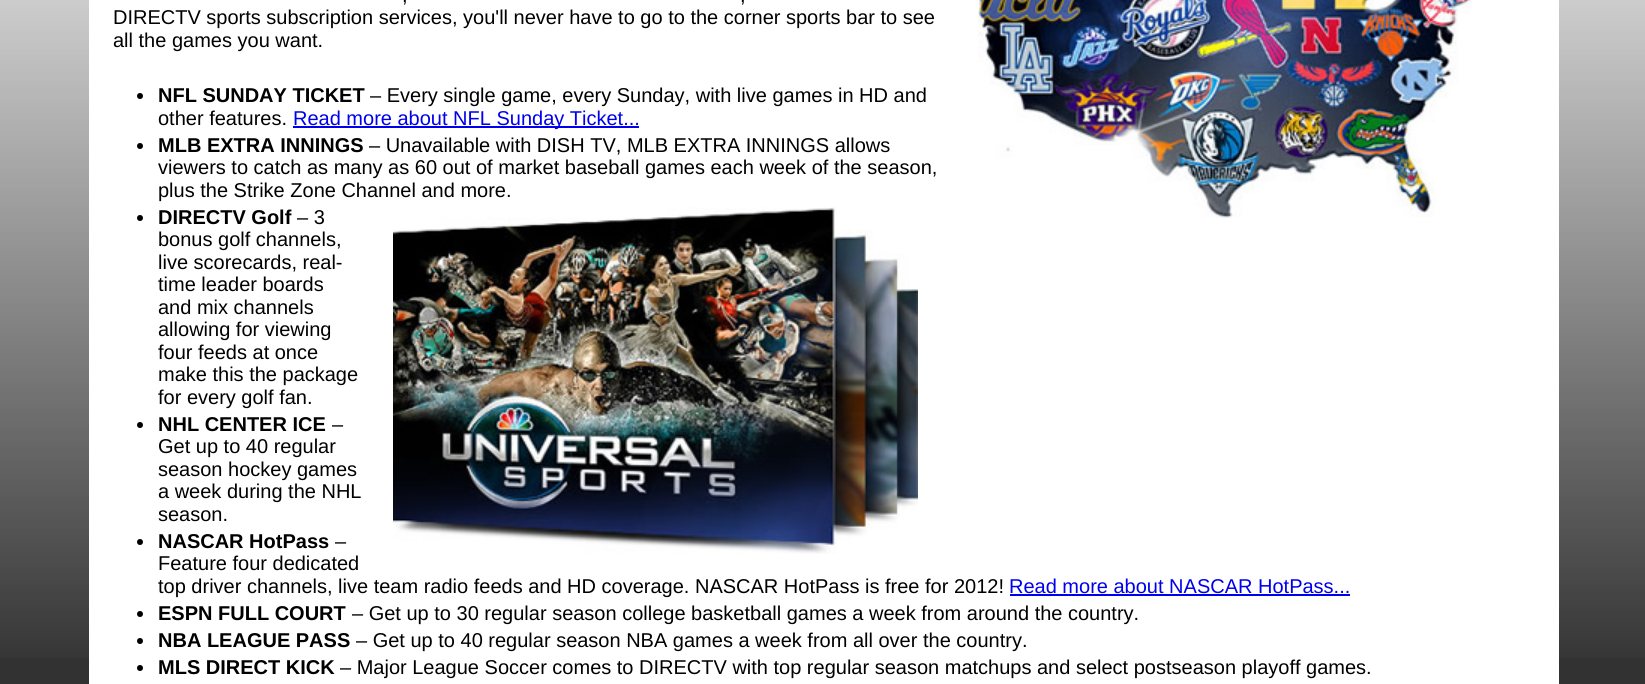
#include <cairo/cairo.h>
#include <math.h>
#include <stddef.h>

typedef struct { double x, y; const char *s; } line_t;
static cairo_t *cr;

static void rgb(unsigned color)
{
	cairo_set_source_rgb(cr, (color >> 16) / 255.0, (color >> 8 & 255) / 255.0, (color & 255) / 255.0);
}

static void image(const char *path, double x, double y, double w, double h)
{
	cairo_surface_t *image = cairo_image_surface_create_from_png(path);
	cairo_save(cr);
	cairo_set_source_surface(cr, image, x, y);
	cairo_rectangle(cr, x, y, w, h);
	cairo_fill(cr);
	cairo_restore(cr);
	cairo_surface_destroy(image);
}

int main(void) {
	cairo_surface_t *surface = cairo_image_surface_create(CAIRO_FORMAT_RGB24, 1645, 684);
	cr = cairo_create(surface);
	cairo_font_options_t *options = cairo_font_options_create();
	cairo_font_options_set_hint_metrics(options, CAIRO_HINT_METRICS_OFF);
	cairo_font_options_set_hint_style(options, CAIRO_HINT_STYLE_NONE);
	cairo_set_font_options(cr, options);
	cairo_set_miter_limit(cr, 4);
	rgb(0x323232);
	cairo_paint(cr);
	image("img/1.png", 0, 0, 1645, 658);
	rgb(0xffffff);
	cairo_rectangle(cr, 89, 0, 1470, 684);
	cairo_fill(cr);
	image("img/2.png", 978, 0, 494, 218);
	rgb(0x000000);
	cairo_arc(cr, 140, 96, 3, 0, 2 * M_PI);
	cairo_fill(cr);
	rgb(0x0000ee);
	cairo_rectangle(cr, 293, 126, 346, 2);
	cairo_fill(cr);
	rgb(0x000000);
	cairo_arc(cr, 140, 146, 3, 0, 2 * M_PI);
	cairo_fill(cr);
	cairo_arc(cr, 140, 218, 3, 0, 2 * M_PI);
	cairo_fill(cr);
	image("img/3.png", 393, 207, 525, 347);
	cairo_arc(cr, 140, 425, 3, 0, 2 * M_PI);
	cairo_fill(cr);
	cairo_arc(cr, 140, 542, 3, 0, 2 * M_PI);
	cairo_fill(cr);
	rgb(0x0000ee);
	cairo_rectangle(cr, 1010, 594, 340, 2);
	cairo_fill(cr);
	rgb(0x000000);
	cairo_arc(cr, 140, 614, 3, 0, 2 * M_PI);
	cairo_fill(cr);
	cairo_arc(cr, 140, 641, 3, 0, 2 * M_PI);
	cairo_fill(cr);
	cairo_arc(cr, 140, 668, 3, 0, 2 * M_PI);
	cairo_fill(cr);
	cairo_select_font_face(cr, "Liberation Sans", CAIRO_FONT_SLANT_NORMAL, CAIRO_FONT_WEIGHT_NORMAL);
	cairo_set_font_size(cr, 20);
	{
		static const line_t items[] = {
			{402, 2, ","},
			{740, 2, ","},
			{113, 24, "DIRECTV sports subscription services, you'll never have to go to the corner sports bar to see"},
			{113, 47, "all the games you want."},
		};
		for (size_t i = 0; i < sizeof items / sizeof *items; i++) {
			cairo_move_to(cr, items[i].x, items[i].y);
			cairo_show_text(cr, items[i].s);
		}
	}
	cairo_select_font_face(cr, "Liberation Sans", CAIRO_FONT_SLANT_NORMAL, CAIRO_FONT_WEIGHT_BOLD);
	cairo_move_to(cr, 158, 102);
	cairo_show_text(cr, "NFL SUNDAY TICKET");
	cairo_select_font_face(cr, "Liberation Sans", CAIRO_FONT_SLANT_NORMAL, CAIRO_FONT_WEIGHT_NORMAL);
	cairo_move_to(cr, 370, 102);
	cairo_show_text(cr, "– Every single game, every Sunday, with live games in HD and");
	cairo_move_to(cr, 158, 125);
	cairo_show_text(cr, "other features.");
	rgb(0x0000ee);
	cairo_move_to(cr, 293, 125);
	cairo_show_text(cr, "Read more about NFL Sunday Ticket...");
	cairo_select_font_face(cr, "Liberation Sans", CAIRO_FONT_SLANT_NORMAL, CAIRO_FONT_WEIGHT_BOLD);
	rgb(0x000000);
	cairo_move_to(cr, 158, 152);
	cairo_show_text(cr, "MLB EXTRA INNINGS");
	cairo_select_font_face(cr, "Liberation Sans", CAIRO_FONT_SLANT_NORMAL, CAIRO_FONT_WEIGHT_NORMAL);
	{
		static const line_t items[] = {
			{369, 152, "– Unavailable with DISH TV, MLB EXTRA INNINGS allows"},
			{158, 174, "viewers to catch as many as 60 out of market baseball games each week of the season,"},
			{158, 197, "plus the Strike Zone Channel and more."},
		};
		for (size_t i = 0; i < sizeof items / sizeof *items; i++) {
			cairo_move_to(cr, items[i].x, items[i].y);
			cairo_show_text(cr, items[i].s);
		}
	}
	cairo_select_font_face(cr, "Liberation Sans", CAIRO_FONT_SLANT_NORMAL, CAIRO_FONT_WEIGHT_BOLD);
	cairo_move_to(cr, 158, 224);
	cairo_show_text(cr, "DIRECTV Golf");
	cairo_select_font_face(cr, "Liberation Sans", CAIRO_FONT_SLANT_NORMAL, CAIRO_FONT_WEIGHT_NORMAL);
	{
		static const line_t items[] = {
			{297, 224, "– 3"},
			{158, 246, "bonus golf channels,"},
			{158, 269, "live scorecards, real-"},
			{158, 291, "time leader boards"},
			{158, 314, "and mix channels"},
			{158, 336, "allowing for viewing"},
			{158, 359, "four feeds at once"},
			{158, 381, "make this the package"},
			{158, 404, "for every golf fan."},
		};
		for (size_t i = 0; i < sizeof items / sizeof *items; i++) {
			cairo_move_to(cr, items[i].x, items[i].y);
			cairo_show_text(cr, items[i].s);
		}
	}
	cairo_select_font_face(cr, "Liberation Sans", CAIRO_FONT_SLANT_NORMAL, CAIRO_FONT_WEIGHT_BOLD);
	cairo_move_to(cr, 158, 431);
	cairo_show_text(cr, "NHL CENTER ICE");
	cairo_select_font_face(cr, "Liberation Sans", CAIRO_FONT_SLANT_NORMAL, CAIRO_FONT_WEIGHT_NORMAL);
	{
		static const line_t items[] = {
			{332, 431, "–"},
			{158, 453, "Get up to 40 regular"},
			{158, 476, "season hockey games"},
			{158, 498, "a week during the NHL"},
			{158, 521, "season."},
		};
		for (size_t i = 0; i < sizeof items / sizeof *items; i++) {
			cairo_move_to(cr, items[i].x, items[i].y);
			cairo_show_text(cr, items[i].s);
		}
	}
	cairo_select_font_face(cr, "Liberation Sans", CAIRO_FONT_SLANT_NORMAL, CAIRO_FONT_WEIGHT_BOLD);
	cairo_move_to(cr, 158, 548);
	cairo_show_text(cr, "NASCAR HotPass");
	cairo_select_font_face(cr, "Liberation Sans", CAIRO_FONT_SLANT_NORMAL, CAIRO_FONT_WEIGHT_NORMAL);
	{
		static const line_t items[] = {
			{335, 548, "–"},
			{158, 570, "Feature four dedicated"},
			{158, 593, "top driver channels, live team radio feeds and HD coverage. NASCAR HotPass is free for 2012!"},
		};
		for (size_t i = 0; i < sizeof items / sizeof *items; i++) {
			cairo_move_to(cr, items[i].x, items[i].y);
			cairo_show_text(cr, items[i].s);
		}
	}
	rgb(0x0000ee);
	cairo_move_to(cr, 1009, 593);
	cairo_show_text(cr, "Read more about NASCAR HotPass...");
	cairo_select_font_face(cr, "Liberation Sans", CAIRO_FONT_SLANT_NORMAL, CAIRO_FONT_WEIGHT_BOLD);
	rgb(0x000000);
	cairo_move_to(cr, 158, 620);
	cairo_show_text(cr, "ESPN FULL COURT");
	cairo_select_font_face(cr, "Liberation Sans", CAIRO_FONT_SLANT_NORMAL, CAIRO_FONT_WEIGHT_NORMAL);
	cairo_move_to(cr, 352, 620);
	cairo_show_text(cr, "– Get up to 30 regular season college basketball games a week from around the country.");
	cairo_select_font_face(cr, "Liberation Sans", CAIRO_FONT_SLANT_NORMAL, CAIRO_FONT_WEIGHT_BOLD);
	cairo_move_to(cr, 158, 647);
	cairo_show_text(cr, "NBA LEAGUE PASS");
	cairo_select_font_face(cr, "Liberation Sans", CAIRO_FONT_SLANT_NORMAL, CAIRO_FONT_WEIGHT_NORMAL);
	cairo_move_to(cr, 356, 647);
	cairo_show_text(cr, "– Get up to 40 regular season NBA games a week from all over the country.");
	cairo_select_font_face(cr, "Liberation Sans", CAIRO_FONT_SLANT_NORMAL, CAIRO_FONT_WEIGHT_BOLD);
	cairo_move_to(cr, 158, 674);
	cairo_show_text(cr, "MLS DIRECT KICK");
	cairo_select_font_face(cr, "Liberation Sans", CAIRO_FONT_SLANT_NORMAL, CAIRO_FONT_WEIGHT_NORMAL);
	cairo_move_to(cr, 340, 674);
	cairo_show_text(cr, "– Major League Soccer comes to DIRECTV with top regular season matchups and select postseason playoff games.");
	cairo_surface_write_to_png(surface, "page.png");
	cairo_font_options_destroy(options);
	cairo_destroy(cr);
	cairo_surface_destroy(surface);
	return 0;
}
